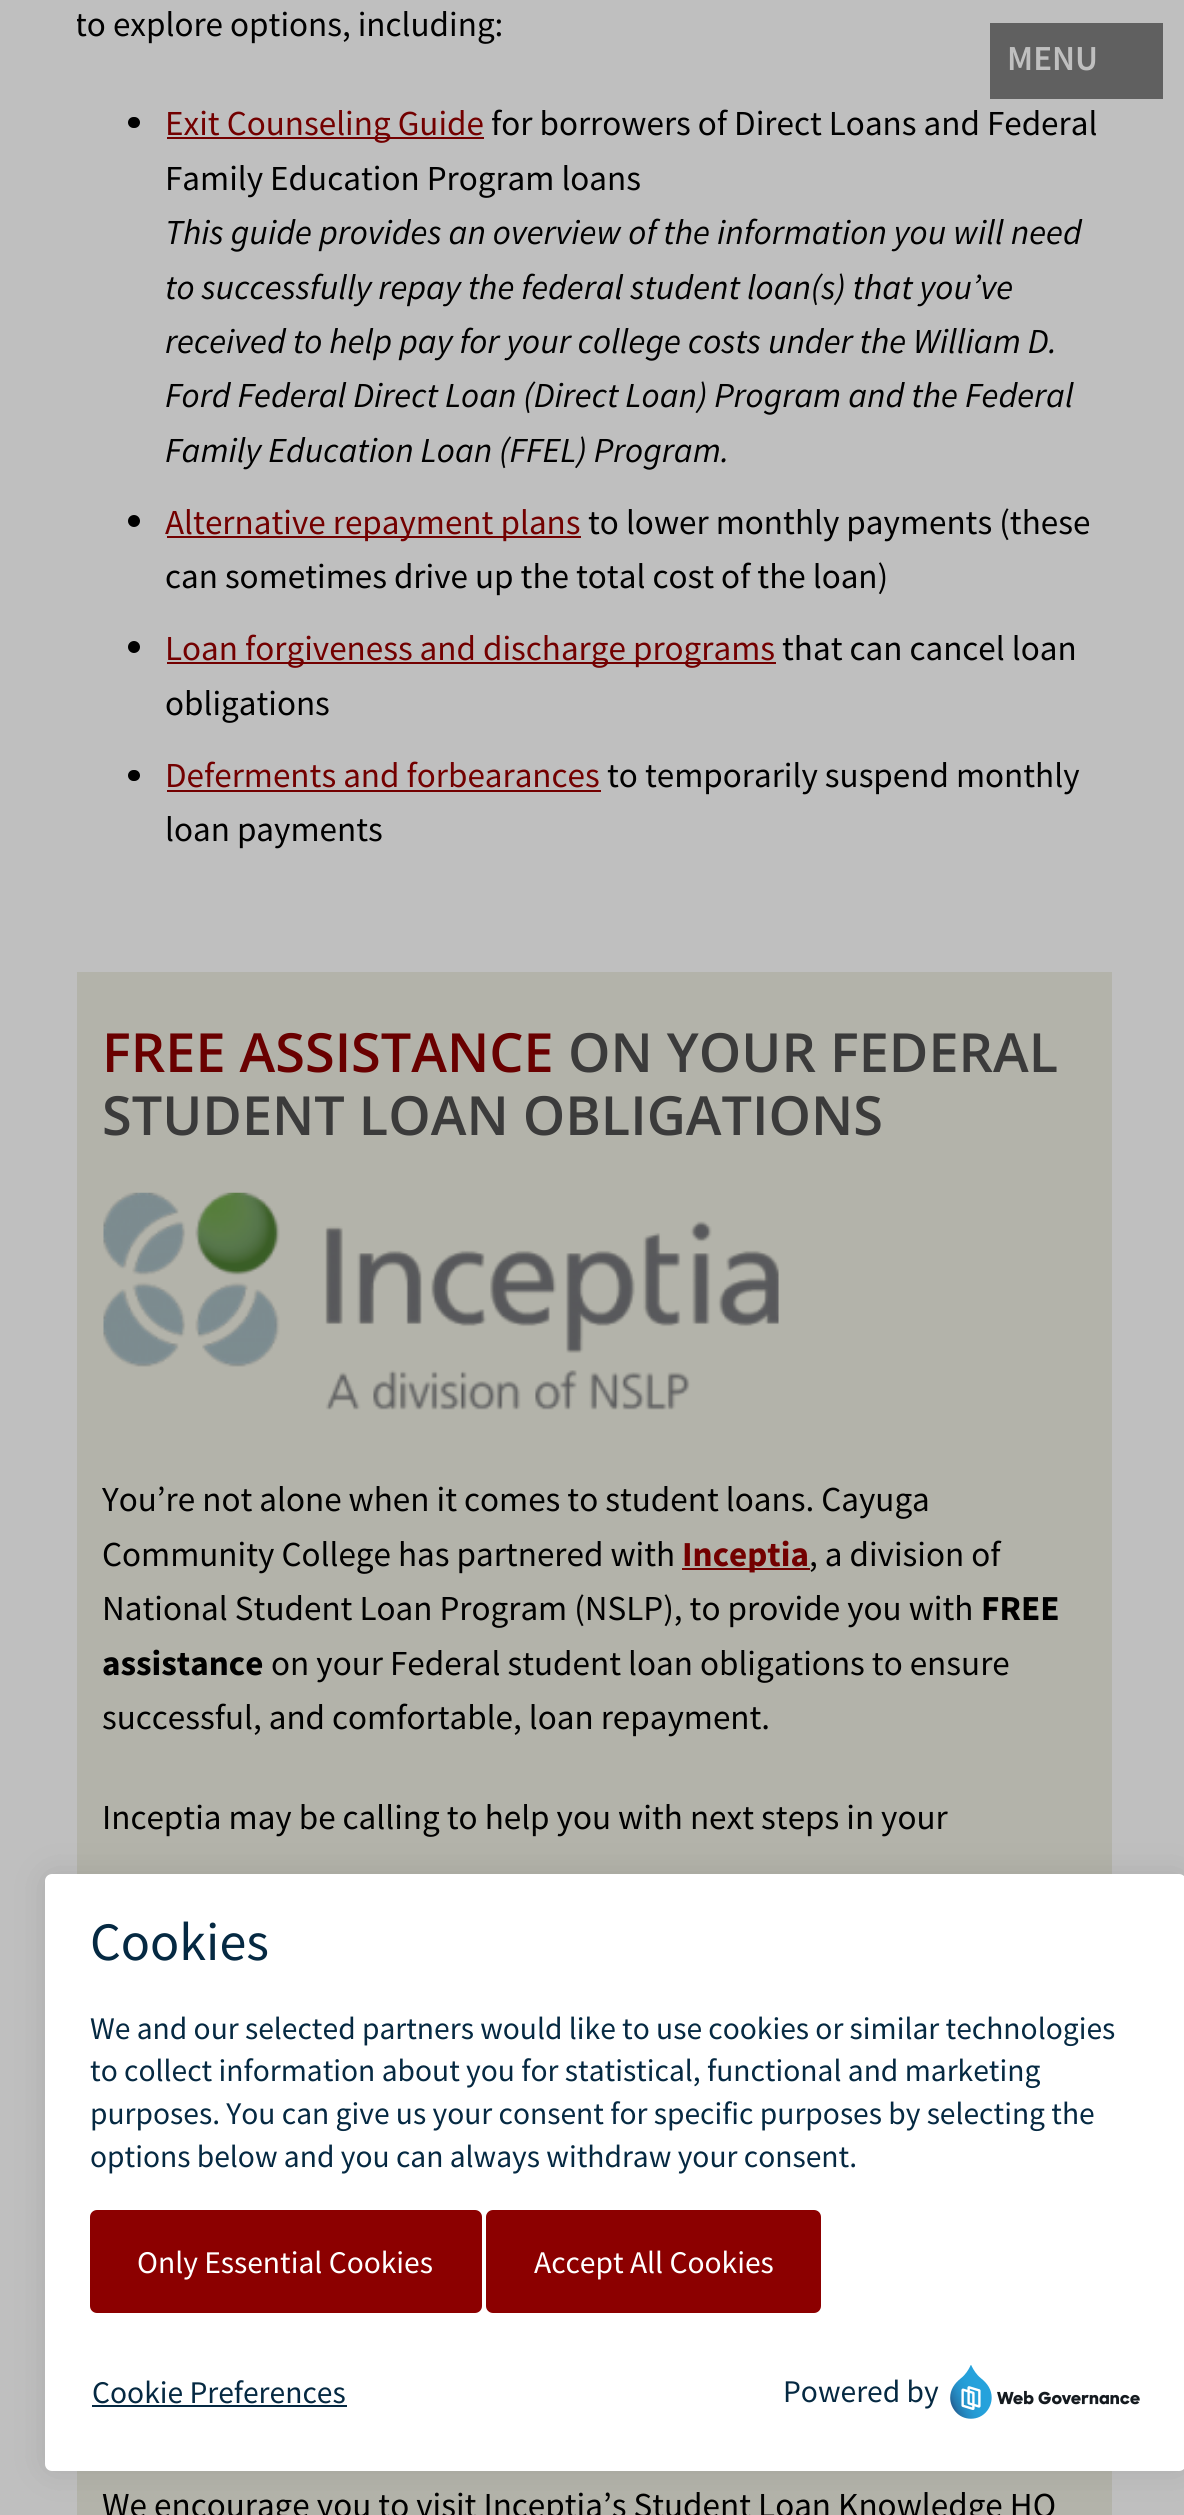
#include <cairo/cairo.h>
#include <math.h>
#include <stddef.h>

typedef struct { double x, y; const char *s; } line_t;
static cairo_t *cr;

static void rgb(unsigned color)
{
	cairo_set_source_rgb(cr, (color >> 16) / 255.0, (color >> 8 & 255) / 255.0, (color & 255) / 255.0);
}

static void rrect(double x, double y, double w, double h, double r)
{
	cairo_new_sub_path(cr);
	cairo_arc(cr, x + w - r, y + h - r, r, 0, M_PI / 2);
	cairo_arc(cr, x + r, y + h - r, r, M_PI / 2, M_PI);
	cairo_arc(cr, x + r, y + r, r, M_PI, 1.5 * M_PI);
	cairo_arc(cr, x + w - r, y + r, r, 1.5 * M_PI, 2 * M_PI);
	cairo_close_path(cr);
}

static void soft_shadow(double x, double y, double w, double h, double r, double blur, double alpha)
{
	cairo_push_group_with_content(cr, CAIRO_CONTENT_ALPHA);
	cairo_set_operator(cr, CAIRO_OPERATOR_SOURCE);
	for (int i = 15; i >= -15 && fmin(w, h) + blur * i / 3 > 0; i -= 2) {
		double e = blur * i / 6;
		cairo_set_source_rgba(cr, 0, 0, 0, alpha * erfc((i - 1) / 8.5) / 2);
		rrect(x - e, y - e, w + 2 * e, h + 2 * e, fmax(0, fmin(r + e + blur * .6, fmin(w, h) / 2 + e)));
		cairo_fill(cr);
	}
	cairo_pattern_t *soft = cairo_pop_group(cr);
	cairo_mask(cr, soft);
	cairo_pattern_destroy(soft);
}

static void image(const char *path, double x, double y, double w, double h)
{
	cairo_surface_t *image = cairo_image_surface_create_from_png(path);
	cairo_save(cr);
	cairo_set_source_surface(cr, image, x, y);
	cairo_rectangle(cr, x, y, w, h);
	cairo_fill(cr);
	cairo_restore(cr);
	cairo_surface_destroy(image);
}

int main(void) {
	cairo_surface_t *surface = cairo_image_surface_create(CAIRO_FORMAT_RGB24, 1184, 2515);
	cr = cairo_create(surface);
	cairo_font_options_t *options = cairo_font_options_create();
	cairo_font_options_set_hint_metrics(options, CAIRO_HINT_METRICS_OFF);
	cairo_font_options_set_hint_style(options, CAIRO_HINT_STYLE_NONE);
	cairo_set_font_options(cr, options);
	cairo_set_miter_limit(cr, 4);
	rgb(0xbfbfbf);
	cairo_paint(cr);
	rgb(0x000000);
	rrect(128, 117, 12, 11, 5.5);
	cairo_fill(cr);
	rgb(0x730000);
	cairo_rectangle(cr, 167, 137, 317, 2);
	cairo_fill(cr);
	rgb(0x000000);
	cairo_arc(cr, 134, 521, 6, 0, 2 * M_PI);
	cairo_fill(cr);
	rgb(0x730000);
	cairo_rectangle(cr, 167, 536, 414, 2);
	cairo_fill(cr);
	rgb(0x000000);
	cairo_arc(cr, 134, 647, 6, 0, 2 * M_PI);
	cairo_fill(cr);
	rgb(0x730000);
	cairo_rectangle(cr, 167, 662, 609, 2);
	cairo_fill(cr);
	rgb(0x000000);
	rrect(128, 770, 12, 11, 5.5);
	cairo_fill(cr);
	rgb(0x730000);
	cairo_rectangle(cr, 167, 790, 434, 2);
	cairo_fill(cr);
	rgb(0xb3b3aa);
	cairo_rectangle(cr, 77, 972, 1035, 1543);
	cairo_fill(cr);
	image("img/1.png", 103, 1192, 676, 218);
	rgb(0x730000);
	cairo_rectangle(cr, 682, 1568, 128, 2);
	cairo_fill(cr);
	rgb(0x606060);
	cairo_rectangle(cr, 990, 23, 173, 76);
	cairo_fill(cr);
	rgb(0x000000);
	soft_shadow(45, 1874, 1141, 597, 7, 17, 0.1);
	rgb(0xffffff);
	rrect(45, 1874, 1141, 597, 7);
	cairo_fill(cr);
	rgb(0x8c0000);
	rrect(90, 2210, 392, 103, 7);
	cairo_fill(cr);
	rrect(486, 2210, 335, 103, 7);
	cairo_fill(cr);
	rgb(0x052942);
	cairo_rectangle(cr, 92, 2405, 255, 2);
	cairo_fill(cr);
	image("img/2.png", 950, 2365, 190, 54);
	cairo_save(cr);
	cairo_rectangle(cr, 77, 0, 1035, 893);
	cairo_clip(cr);
	cairo_select_font_face(cr, "Source Sans Pro", CAIRO_FONT_SLANT_NORMAL, CAIRO_FONT_WEIGHT_NORMAL);
	cairo_set_font_size(cr, 35.1);
	rgb(0x000000);
	cairo_move_to(cr, 75, 36);
	cairo_show_text(cr, "to explore options, including:");
	cairo_restore(cr);
	cairo_select_font_face(cr, "Source Sans Pro", CAIRO_FONT_SLANT_NORMAL, CAIRO_FONT_WEIGHT_NORMAL);
	cairo_set_font_size(cr, 35.1);
	rgb(0x730000);
	cairo_move_to(cr, 165, 135);
	cairo_show_text(cr, "Exit Counseling Guide");
	rgb(0x000000);
	cairo_move_to(cr, 491, 135);
	cairo_show_text(cr, "for borrowers of Direct Loans and Federal");
	cairo_move_to(cr, 165, 190);
	cairo_show_text(cr, "Family Education Program loans");
	cairo_select_font_face(cr, "Source Sans Pro", CAIRO_FONT_SLANT_ITALIC, CAIRO_FONT_WEIGHT_NORMAL);
	{
		static const line_t items[] = {
			{165, 244, "This guide provides an overview of the information you will need"},
			{165, 299, "to successfully repay the federal student loan(s) that you’ve"},
			{165, 353, "received to help pay for your college costs under the William D."},
			{165, 407, "Ford Federal Direct Loan (Direct Loan) Program and the Federal"},
			{165, 462, "Family Education Loan (FFEL) Program."},
		};
		for (size_t i = 0; i < sizeof items / sizeof *items; i++) {
			cairo_move_to(cr, items[i].x, items[i].y);
			cairo_show_text(cr, items[i].s);
		}
	}
	cairo_select_font_face(cr, "Source Sans Pro", CAIRO_FONT_SLANT_NORMAL, CAIRO_FONT_WEIGHT_NORMAL);
	rgb(0x730000);
	cairo_move_to(cr, 165, 534);
	cairo_show_text(cr, "Alternative repayment plans");
	rgb(0x000000);
	cairo_move_to(cr, 588, 534);
	cairo_show_text(cr, "to lower monthly payments (these");
	cairo_move_to(cr, 165, 588);
	cairo_show_text(cr, "can sometimes drive up the total cost of the loan)");
	rgb(0x730000);
	cairo_move_to(cr, 165, 660);
	cairo_show_text(cr, "Loan forgiveness and discharge programs");
	rgb(0x000000);
	cairo_move_to(cr, 782, 660);
	cairo_show_text(cr, "that can cancel loan");
	cairo_move_to(cr, 165, 715);
	cairo_show_text(cr, "obligations");
	rgb(0x730000);
	cairo_move_to(cr, 165, 787);
	cairo_show_text(cr, "Deferments and forbearances");
	rgb(0x000000);
	cairo_move_to(cr, 607, 787);
	cairo_show_text(cr, "to temporarily suspend monthly");
	cairo_move_to(cr, 165, 841);
	cairo_show_text(cr, "loan payments");
	cairo_select_font_face(cr, "Open Sans SemiBold", CAIRO_FONT_SLANT_NORMAL, CAIRO_FONT_WEIGHT_NORMAL);
	cairo_set_font_size(cr, 54);
	rgb(0x690000);
	cairo_move_to(cr, 102, 1072);
	cairo_show_text(cr, "FREE ASSISTANCE");
	rgb(0x3b3b3b);
	cairo_move_to(cr, 568, 1072);
	cairo_show_text(cr, "ON YOUR FEDERAL");
	cairo_move_to(cr, 102, 1135);
	cairo_show_text(cr, "STUDENT LOAN OBLIGATIONS");
	cairo_select_font_face(cr, "Source Sans Pro", CAIRO_FONT_SLANT_NORMAL, CAIRO_FONT_WEIGHT_NORMAL);
	cairo_set_font_size(cr, 35.1);
	rgb(0x000000);
	cairo_move_to(cr, 102, 1511);
	cairo_show_text(cr, "You’re not alone when it comes to student loans. Cayuga");
	cairo_move_to(cr, 102, 1566);
	cairo_show_text(cr, "Community College has partnered with");
	cairo_select_font_face(cr, "Source Sans Pro", CAIRO_FONT_SLANT_NORMAL, CAIRO_FONT_WEIGHT_BOLD);
	rgb(0x730000);
	cairo_move_to(cr, 682, 1566);
	cairo_show_text(cr, "Inceptia");
	cairo_select_font_face(cr, "Source Sans Pro", CAIRO_FONT_SLANT_NORMAL, CAIRO_FONT_WEIGHT_NORMAL);
	rgb(0x000000);
	cairo_move_to(cr, 809, 1566);
	cairo_show_text(cr, ", a division of");
	cairo_move_to(cr, 102, 1620);
	cairo_show_text(cr, "National Student Loan Program (NSLP), to provide you with");
	cairo_select_font_face(cr, "Source Sans Pro", CAIRO_FONT_SLANT_NORMAL, CAIRO_FONT_WEIGHT_BOLD);
	cairo_move_to(cr, 981, 1620);
	cairo_show_text(cr, "FREE");
	cairo_move_to(cr, 102, 1675);
	cairo_show_text(cr, "assistance");
	cairo_select_font_face(cr, "Source Sans Pro", CAIRO_FONT_SLANT_NORMAL, CAIRO_FONT_WEIGHT_NORMAL);
	{
		static const line_t items[] = {
			{271, 1675, "on your Federal student loan obligations to ensure"},
			{102, 1729, "successful, and comfortable, loan repayment."},
			{102, 1829, "Inceptia may be calling to help you with next steps in your"},
			{102, 2517, "We encourage you to visit Inceptia’s Student Loan Knowledge HQ"},
		};
		for (size_t i = 0; i < sizeof items / sizeof *items; i++) {
			cairo_move_to(cr, items[i].x, items[i].y);
			cairo_show_text(cr, items[i].s);
		}
	}
	cairo_select_font_face(cr, "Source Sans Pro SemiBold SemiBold", CAIRO_FONT_SLANT_NORMAL, CAIRO_FONT_WEIGHT_NORMAL);
	rgb(0xbfbfbf);
	cairo_move_to(cr, 1007, 70);
	cairo_show_text(cr, "MENU");
	cairo_select_font_face(cr, "Source Sans Pro", CAIRO_FONT_SLANT_NORMAL, CAIRO_FONT_WEIGHT_NORMAL);
	cairo_set_font_size(cr, 54);
	rgb(0x052942);
	cairo_move_to(cr, 90, 1960);
	cairo_show_text(cr, "Cookies");
	cairo_set_font_size(cr, 31.5);
	{
		static const line_t items[] = {
			{90, 2039, "We and our selected partners would like to use cookies or similar technologies"},
			{90, 2081, "to collect information about you for statistical, functional and marketing"},
			{90, 2124, "purposes. You can give us your consent for specific purposes by selecting the"},
			{90, 2167, "options below and you can always withdraw your consent."},
		};
		for (size_t i = 0; i < sizeof items / sizeof *items; i++) {
			cairo_move_to(cr, items[i].x, items[i].y);
			cairo_show_text(cr, items[i].s);
		}
	}
	rgb(0xffffff);
	cairo_move_to(cr, 137, 2273);
	cairo_show_text(cr, "Only Essential Cookies");
	cairo_move_to(cr, 534, 2273);
	cairo_show_text(cr, "Accept All Cookies");
	rgb(0x052942);
	cairo_move_to(cr, 92, 2403);
	cairo_show_text(cr, "Cookie Preferences");
	cairo_move_to(cr, 783, 2402);
	cairo_show_text(cr, "Powered by");
	cairo_surface_write_to_png(surface, "page.png");
	cairo_font_options_destroy(options);
	cairo_destroy(cr);
	cairo_surface_destroy(surface);
	return 0;
}
